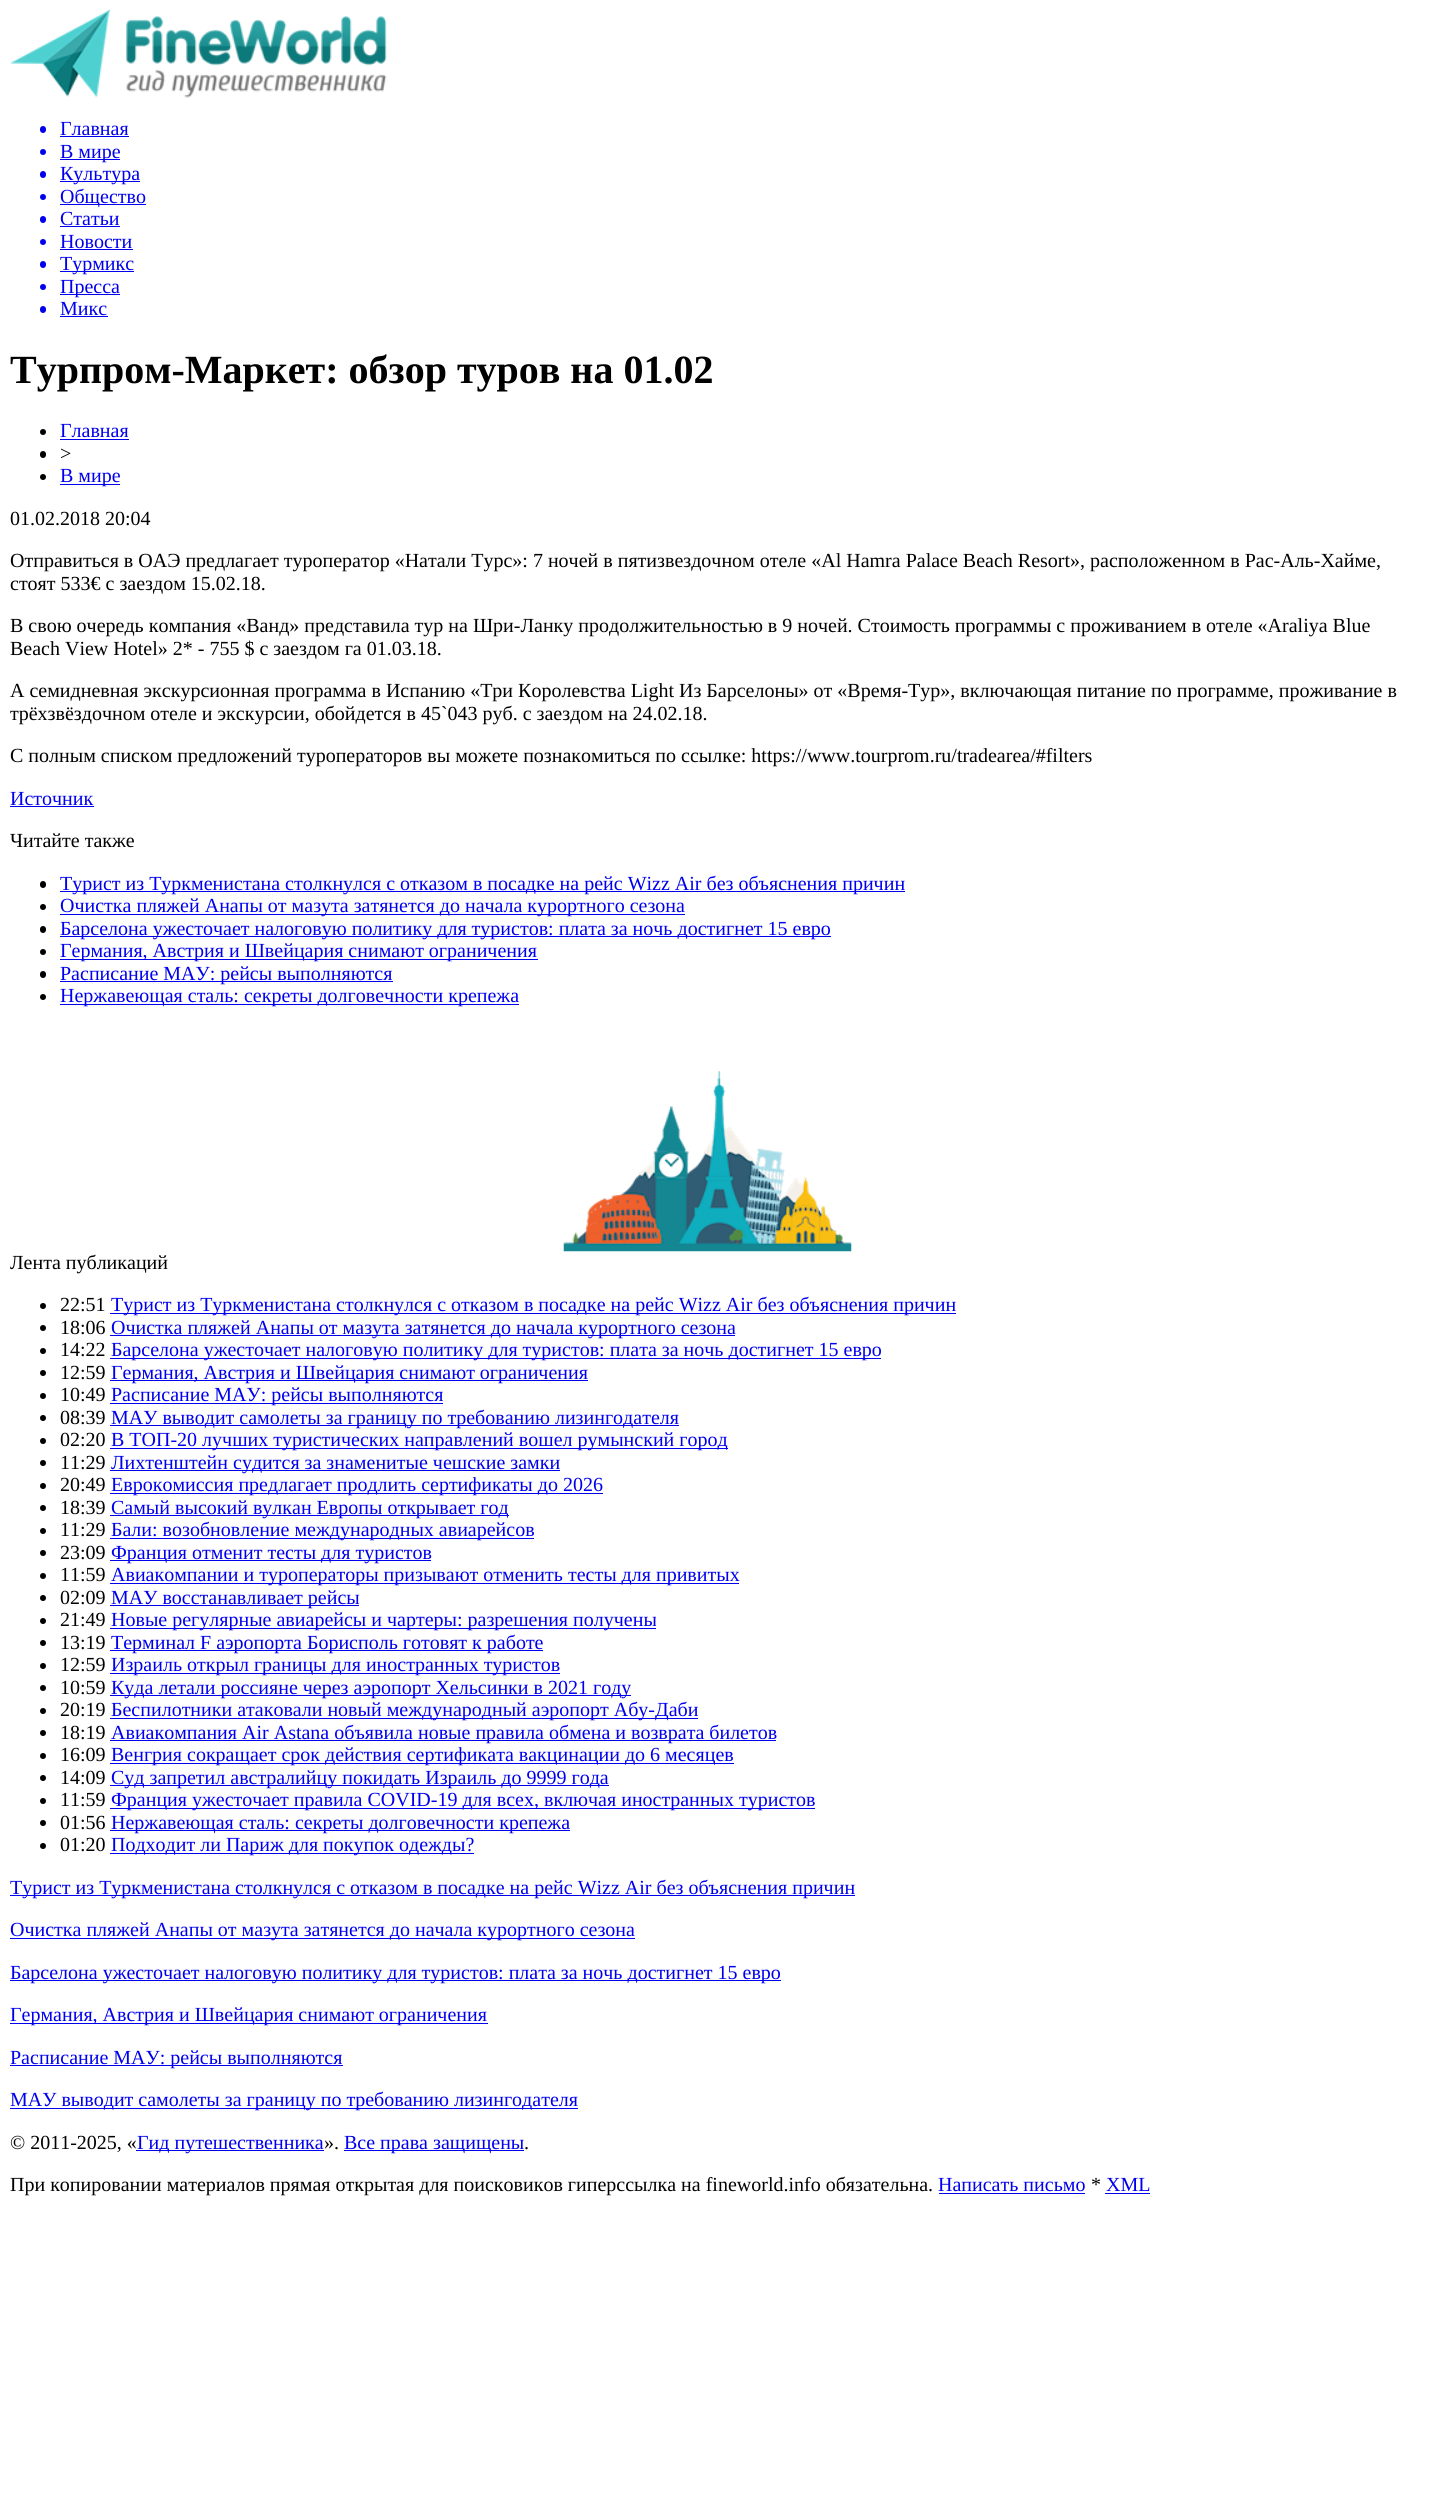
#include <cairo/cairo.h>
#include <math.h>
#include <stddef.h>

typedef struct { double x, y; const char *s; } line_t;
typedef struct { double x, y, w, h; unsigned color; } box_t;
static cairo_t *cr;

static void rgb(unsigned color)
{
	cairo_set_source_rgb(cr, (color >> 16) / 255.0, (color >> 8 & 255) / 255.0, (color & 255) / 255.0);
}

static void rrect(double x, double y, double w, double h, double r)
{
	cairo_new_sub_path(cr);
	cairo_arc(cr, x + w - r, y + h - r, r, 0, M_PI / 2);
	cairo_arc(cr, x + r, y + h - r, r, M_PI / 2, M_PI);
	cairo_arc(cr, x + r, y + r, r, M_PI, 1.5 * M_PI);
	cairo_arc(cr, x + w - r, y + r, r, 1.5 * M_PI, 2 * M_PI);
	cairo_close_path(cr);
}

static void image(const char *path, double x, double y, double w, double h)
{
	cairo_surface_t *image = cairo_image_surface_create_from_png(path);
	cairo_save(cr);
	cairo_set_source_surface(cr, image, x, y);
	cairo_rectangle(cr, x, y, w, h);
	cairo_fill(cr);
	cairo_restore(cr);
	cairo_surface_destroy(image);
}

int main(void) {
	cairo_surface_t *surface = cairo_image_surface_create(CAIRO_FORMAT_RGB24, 1432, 2495);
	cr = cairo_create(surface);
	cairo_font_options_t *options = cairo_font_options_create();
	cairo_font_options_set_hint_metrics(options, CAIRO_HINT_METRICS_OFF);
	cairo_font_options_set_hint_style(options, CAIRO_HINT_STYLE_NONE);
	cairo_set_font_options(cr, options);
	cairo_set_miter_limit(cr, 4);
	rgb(0xffffff);
	cairo_paint(cr);
	image("img/1.png", 10, 10, 377, 88);
	rgb(0x0000ee);
	rrect(40, 126, 6, 7, 3);
	cairo_fill(cr);
	cairo_rectangle(cr, 60, 136, 69, 1);
	cairo_fill(cr);
	cairo_arc(cr, 43, 152, 3, 0, 2 * M_PI);
	cairo_fill(cr);
	cairo_rectangle(cr, 60, 159, 60, 1);
	cairo_fill(cr);
	rrect(40, 171, 6, 7, 3);
	cairo_fill(cr);
	cairo_rectangle(cr, 60, 181, 80, 1);
	cairo_fill(cr);
	cairo_arc(cr, 43, 197, 3, 0, 2 * M_PI);
	cairo_fill(cr);
	cairo_rectangle(cr, 60, 204, 86, 1);
	cairo_fill(cr);
	rrect(40, 216, 6, 7, 3);
	cairo_fill(cr);
	cairo_rectangle(cr, 60, 226, 60, 1);
	cairo_fill(cr);
	cairo_arc(cr, 43, 242, 3, 0, 2 * M_PI);
	cairo_fill(cr);
	cairo_rectangle(cr, 60, 249, 73, 1);
	cairo_fill(cr);
	rrect(40, 261, 6, 7, 3);
	cairo_fill(cr);
	cairo_rectangle(cr, 60, 271, 74, 1);
	cairo_fill(cr);
	cairo_arc(cr, 43, 287, 3, 0, 2 * M_PI);
	cairo_fill(cr);
	cairo_rectangle(cr, 60, 294, 60, 1);
	cairo_fill(cr);
	rrect(40, 306, 6, 7, 3);
	cairo_fill(cr);
	cairo_rectangle(cr, 60, 316, 48, 1);
	cairo_fill(cr);
	rgb(0x000000);
	cairo_arc(cr, 43, 432, 3, 0, 2 * M_PI);
	cairo_fill(cr);
	rgb(0x0000ee);
	cairo_rectangle(cr, 60, 439, 69, 1);
	cairo_fill(cr);
	rgb(0x000000);
	rrect(40, 451, 6, 7, 3);
	cairo_fill(cr);
	cairo_arc(cr, 43, 477, 3, 0, 2 * M_PI);
	cairo_fill(cr);
	rgb(0x0000ee);
	cairo_rectangle(cr, 60, 484, 60, 1);
	cairo_fill(cr);
	cairo_rectangle(cr, 10, 806, 84, 1);
	cairo_fill(cr);
	rgb(0x000000);
	rrect(40, 881, 6, 7, 3);
	cairo_fill(cr);
	rgb(0x0000ee);
	cairo_rectangle(cr, 60, 891, 845, 1);
	cairo_fill(cr);
	rgb(0x000000);
	cairo_arc(cr, 43, 907, 3, 0, 2 * M_PI);
	cairo_fill(cr);
	rgb(0x0000ee);
	cairo_rectangle(cr, 60, 914, 625, 1);
	cairo_fill(cr);
	rgb(0x000000);
	rrect(40, 926, 6, 7, 3);
	cairo_fill(cr);
	rgb(0x0000ee);
	cairo_rectangle(cr, 60, 936, 771, 1);
	cairo_fill(cr);
	rgb(0x000000);
	cairo_arc(cr, 43, 952, 3, 0, 2 * M_PI);
	cairo_fill(cr);
	rgb(0x0000ee);
	cairo_rectangle(cr, 60, 959, 478, 1);
	cairo_fill(cr);
	rgb(0x000000);
	rrect(40, 971, 6, 7, 3);
	cairo_fill(cr);
	rgb(0x0000ee);
	cairo_rectangle(cr, 60, 981, 333, 1);
	cairo_fill(cr);
	rgb(0x000000);
	cairo_arc(cr, 43, 997, 3, 0, 2 * M_PI);
	cairo_fill(cr);
	rgb(0x0000ee);
	cairo_rectangle(cr, 60, 1004, 459, 1);
	cairo_fill(cr);
	image("img/2.png", 563, 1071, 289, 181);
	rgb(0x000000);
	cairo_arc(cr, 43, 1306, 3, 0, 2 * M_PI);
	cairo_fill(cr);
	rgb(0x0000ee);
	cairo_rectangle(cr, 110, 1313, 846, 1);
	cairo_fill(cr);
	rgb(0x000000);
	cairo_arc(cr, 43, 1328, 3, 0, 2 * M_PI);
	cairo_fill(cr);
	rgb(0x0000ee);
	cairo_rectangle(cr, 110, 1335, 625, 1);
	cairo_fill(cr);
	rgb(0x000000);
	cairo_arc(cr, 43, 1351, 3, 0, 2 * M_PI);
	cairo_fill(cr);
	rgb(0x0000ee);
	cairo_rectangle(cr, 110, 1358, 771, 1);
	cairo_fill(cr);
	rgb(0x000000);
	cairo_arc(cr, 43, 1373, 3, 0, 2 * M_PI);
	cairo_fill(cr);
	rgb(0x0000ee);
	cairo_rectangle(cr, 110, 1380, 478, 1);
	cairo_fill(cr);
	rgb(0x000000);
	cairo_arc(cr, 43, 1396, 3, 0, 2 * M_PI);
	cairo_fill(cr);
	rgb(0x0000ee);
	cairo_rectangle(cr, 110, 1403, 333, 1);
	cairo_fill(cr);
	rgb(0x000000);
	cairo_arc(cr, 43, 1418, 3, 0, 2 * M_PI);
	cairo_fill(cr);
	rgb(0x0000ee);
	cairo_rectangle(cr, 110, 1425, 569, 1);
	cairo_fill(cr);
	rgb(0x000000);
	cairo_arc(cr, 43, 1441, 3, 0, 2 * M_PI);
	cairo_fill(cr);
	rgb(0x0000ee);
	cairo_rectangle(cr, 110, 1448, 618, 1);
	cairo_fill(cr);
	rgb(0x000000);
	cairo_arc(cr, 43, 1463, 3, 0, 2 * M_PI);
	cairo_fill(cr);
	rgb(0x0000ee);
	cairo_rectangle(cr, 110, 1470, 450, 1);
	cairo_fill(cr);
	rgb(0x000000);
	cairo_arc(cr, 43, 1486, 3, 0, 2 * M_PI);
	cairo_fill(cr);
	rgb(0x0000ee);
	cairo_rectangle(cr, 110, 1493, 493, 1);
	cairo_fill(cr);
	rgb(0x000000);
	cairo_arc(cr, 43, 1508, 3, 0, 2 * M_PI);
	cairo_fill(cr);
	rgb(0x0000ee);
	cairo_rectangle(cr, 110, 1515, 399, 1);
	cairo_fill(cr);
	rgb(0x000000);
	cairo_arc(cr, 43, 1531, 3, 0, 2 * M_PI);
	cairo_fill(cr);
	rgb(0x0000ee);
	cairo_rectangle(cr, 110, 1538, 424, 1);
	cairo_fill(cr);
	rgb(0x000000);
	cairo_arc(cr, 43, 1553, 3, 0, 2 * M_PI);
	cairo_fill(cr);
	rgb(0x0000ee);
	cairo_rectangle(cr, 110, 1560, 321, 1);
	cairo_fill(cr);
	rgb(0x000000);
	cairo_arc(cr, 43, 1576, 3, 0, 2 * M_PI);
	cairo_fill(cr);
	rgb(0x0000ee);
	cairo_rectangle(cr, 110, 1583, 629, 1);
	cairo_fill(cr);
	rgb(0x000000);
	cairo_arc(cr, 43, 1598, 3, 0, 2 * M_PI);
	cairo_fill(cr);
	rgb(0x0000ee);
	cairo_rectangle(cr, 110, 1605, 249, 1);
	cairo_fill(cr);
	rgb(0x000000);
	cairo_arc(cr, 43, 1621, 3, 0, 2 * M_PI);
	cairo_fill(cr);
	rgb(0x0000ee);
	cairo_rectangle(cr, 110, 1628, 546, 1);
	cairo_fill(cr);
	rgb(0x000000);
	cairo_arc(cr, 43, 1643, 3, 0, 2 * M_PI);
	cairo_fill(cr);
	rgb(0x0000ee);
	cairo_rectangle(cr, 110, 1650, 433, 1);
	cairo_fill(cr);
	rgb(0x000000);
	cairo_arc(cr, 43, 1666, 3, 0, 2 * M_PI);
	cairo_fill(cr);
	rgb(0x0000ee);
	cairo_rectangle(cr, 110, 1673, 450, 1);
	cairo_fill(cr);
	rgb(0x000000);
	cairo_arc(cr, 43, 1688, 3, 0, 2 * M_PI);
	cairo_fill(cr);
	rgb(0x0000ee);
	cairo_rectangle(cr, 110, 1695, 521, 1);
	cairo_fill(cr);
	rgb(0x000000);
	cairo_arc(cr, 43, 1711, 3, 0, 2 * M_PI);
	cairo_fill(cr);
	rgb(0x0000ee);
	cairo_rectangle(cr, 110, 1718, 588, 1);
	cairo_fill(cr);
	rgb(0x000000);
	cairo_arc(cr, 43, 1733, 3, 0, 2 * M_PI);
	cairo_fill(cr);
	rgb(0x0000ee);
	cairo_rectangle(cr, 110, 1740, 666, 1);
	cairo_fill(cr);
	rgb(0x000000);
	cairo_arc(cr, 43, 1756, 3, 0, 2 * M_PI);
	cairo_fill(cr);
	rgb(0x0000ee);
	cairo_rectangle(cr, 110, 1763, 624, 1);
	cairo_fill(cr);
	rgb(0x000000);
	cairo_arc(cr, 43, 1778, 3, 0, 2 * M_PI);
	cairo_fill(cr);
	rgb(0x0000ee);
	cairo_rectangle(cr, 110, 1785, 499, 1);
	cairo_fill(cr);
	rgb(0x000000);
	cairo_arc(cr, 43, 1801, 3, 0, 2 * M_PI);
	cairo_fill(cr);
	rgb(0x0000ee);
	cairo_rectangle(cr, 110, 1808, 705, 1);
	cairo_fill(cr);
	rgb(0x000000);
	cairo_arc(cr, 43, 1823, 3, 0, 2 * M_PI);
	cairo_fill(cr);
	rgb(0x0000ee);
	cairo_rectangle(cr, 110, 1830, 460, 1);
	cairo_fill(cr);
	rgb(0x000000);
	cairo_arc(cr, 43, 1846, 3, 0, 2 * M_PI);
	cairo_fill(cr);
	{
		static const box_t items[] = {
			{110, 1853, 364, 1, 0x0000ee},
			{10, 1895, 845, 1, 0x0000ee},
			{10, 1938, 625, 1, 0x0000ee},
			{10, 1980, 771, 1, 0x0000ee},
			{10, 2023, 478, 1, 0x0000ee},
			{10, 2065, 333, 1, 0x0000ee},
			{10, 2108, 568, 1, 0x0000ee},
			{344, 2150, 180, 1, 0x0000ee},
			{939, 2193, 146, 1, 0x0000ee},
			{1105, 2193, 45, 1, 0x0000ee},
		};
		for (size_t i = 0; i < sizeof items / sizeof *items; i++) {
			rgb(items[i].color);
			cairo_rectangle(cr, items[i].x, items[i].y, items[i].w, items[i].h);
			cairo_fill(cr);
		}
	}
	cairo_select_font_face(cr, "Liberation Serif", CAIRO_FONT_SLANT_NORMAL, CAIRO_FONT_WEIGHT_NORMAL);
	cairo_set_font_size(cr, 20);
	{
		static const line_t items[] = {
			{60, 135, "Главная"},
			{60, 158, "В мире"},
			{60, 180, "Культура"},
			{60, 203, "Общество"},
			{60, 225, "Статьи"},
			{60, 248, "Новости"},
			{60, 270, "Турмикс"},
			{60, 293, "Пресса"},
			{60, 315, "Микс"},
		};
		for (size_t i = 0; i < sizeof items / sizeof *items; i++) {
			cairo_move_to(cr, items[i].x, items[i].y);
			cairo_show_text(cr, items[i].s);
		}
	}
	cairo_select_font_face(cr, "Liberation Serif", CAIRO_FONT_SLANT_NORMAL, CAIRO_FONT_WEIGHT_BOLD);
	cairo_set_font_size(cr, 40);
	rgb(0x000000);
	cairo_move_to(cr, 10, 383);
	cairo_show_text(cr, "Турпром-Маркет: обзор туров на 01.02");
	cairo_select_font_face(cr, "Liberation Serif", CAIRO_FONT_SLANT_NORMAL, CAIRO_FONT_WEIGHT_NORMAL);
	cairo_set_font_size(cr, 20);
	rgb(0x0000ee);
	cairo_move_to(cr, 60, 437);
	cairo_show_text(cr, "Главная");
	rgb(0x000000);
	cairo_move_to(cr, 60, 460);
	cairo_show_text(cr, ">");
	rgb(0x0000ee);
	cairo_move_to(cr, 60, 482);
	cairo_show_text(cr, "В мире");
	rgb(0x000000);
	{
		static const line_t items[] = {
			{10, 525, "01.02.2018 20:04"},
			{10, 567, "Отправиться в ОАЭ предлагает туроператор «Натали Турс»: 7 ночей в пятизвездочном отеле «Al Hamra Palace Beach Resort», расположенном в Рас-Аль-Хайме,"},
			{10, 590, "стоят 533€ с заездом 15.02.18."},
			{10, 632, "В свою очередь компания «Ванд» представила тур на Шри-Ланку продолжительностью в 9 ночей. Стоимость программы с проживанием в отеле «Araliya Blue"},
			{10, 655, "Beach View Hotel» 2* - 755 $ с заездом га 01.03.18."},
			{10, 697, "А семидневная экскурсионная программа в Испанию «Три Королевства Light Из Барселоны» от «Время-Тур», включающая питание по программе, проживание в"},
			{10, 720, "трёхзвёздочном отеле и экскурсии, обойдется в 45`043 руб. с заездом на 24.02.18."},
			{10, 762, "С полным списком предложений туроператоров вы можете познакомиться по ссылке: https://www.tourprom.ru/tradearea/#filters"},
		};
		for (size_t i = 0; i < sizeof items / sizeof *items; i++) {
			cairo_move_to(cr, items[i].x, items[i].y);
			cairo_show_text(cr, items[i].s);
		}
	}
	rgb(0x0000ee);
	cairo_move_to(cr, 10, 805);
	cairo_show_text(cr, "Источник");
	rgb(0x000000);
	cairo_move_to(cr, 10, 847);
	cairo_show_text(cr, "Читайте также");
	rgb(0x0000ee);
	{
		static const line_t items[] = {
			{60, 890, "Турист из Туркменистана столкнулся с отказом в посадке на рейс Wizz Air без объяснения причин"},
			{60, 912, "Очистка пляжей Анапы от мазута затянется до начала курортного сезона"},
			{60, 935, "Барселона ужесточает налоговую политику для туристов: плата за ночь достигнет 15 евро"},
			{60, 957, "Германия, Австрия и Швейцария снимают ограничения"},
			{60, 980, "Расписание МАУ: рейсы выполняются"},
			{60, 1002, "Нержавеющая сталь: секреты долговечности крепежа"},
		};
		for (size_t i = 0; i < sizeof items / sizeof *items; i++) {
			cairo_move_to(cr, items[i].x, items[i].y);
			cairo_show_text(cr, items[i].s);
		}
	}
	rgb(0x000000);
	cairo_move_to(cr, 10, 1269);
	cairo_show_text(cr, "Лента публикаций");
	cairo_move_to(cr, 60, 1311);
	cairo_show_text(cr, "22:51");
	rgb(0x0000ee);
	cairo_move_to(cr, 111, 1311);
	cairo_show_text(cr, "Турист из Туркменистана столкнулся с отказом в посадке на рейс Wizz Air без объяснения причин");
	rgb(0x000000);
	cairo_move_to(cr, 60, 1334);
	cairo_show_text(cr, "18:06");
	rgb(0x0000ee);
	cairo_move_to(cr, 111, 1334);
	cairo_show_text(cr, "Очистка пляжей Анапы от мазута затянется до начала курортного сезона");
	rgb(0x000000);
	cairo_move_to(cr, 60, 1356);
	cairo_show_text(cr, "14:22");
	rgb(0x0000ee);
	cairo_move_to(cr, 111, 1356);
	cairo_show_text(cr, "Барселона ужесточает налоговую политику для туристов: плата за ночь достигнет 15 евро");
	rgb(0x000000);
	cairo_move_to(cr, 60, 1379);
	cairo_show_text(cr, "12:59");
	rgb(0x0000ee);
	cairo_move_to(cr, 111, 1379);
	cairo_show_text(cr, "Германия, Австрия и Швейцария снимают ограничения");
	rgb(0x000000);
	cairo_move_to(cr, 60, 1401);
	cairo_show_text(cr, "10:49");
	rgb(0x0000ee);
	cairo_move_to(cr, 111, 1401);
	cairo_show_text(cr, "Расписание МАУ: рейсы выполняются");
	rgb(0x000000);
	cairo_move_to(cr, 60, 1424);
	cairo_show_text(cr, "08:39");
	rgb(0x0000ee);
	cairo_move_to(cr, 111, 1424);
	cairo_show_text(cr, "МАУ выводит самолеты за границу по требованию лизингодателя");
	rgb(0x000000);
	cairo_move_to(cr, 60, 1446);
	cairo_show_text(cr, "02:20");
	rgb(0x0000ee);
	cairo_move_to(cr, 111, 1446);
	cairo_show_text(cr, "В ТОП-20 лучших туристических направлений вошел румынский город");
	rgb(0x000000);
	cairo_move_to(cr, 60, 1469);
	cairo_show_text(cr, "11:29");
	rgb(0x0000ee);
	cairo_move_to(cr, 111, 1469);
	cairo_show_text(cr, "Лихтенштейн судится за знаменитые чешские замки");
	rgb(0x000000);
	cairo_move_to(cr, 60, 1491);
	cairo_show_text(cr, "20:49");
	rgb(0x0000ee);
	cairo_move_to(cr, 111, 1491);
	cairo_show_text(cr, "Еврокомиссия предлагает продлить сертификаты до 2026");
	rgb(0x000000);
	cairo_move_to(cr, 60, 1514);
	cairo_show_text(cr, "18:39");
	rgb(0x0000ee);
	cairo_move_to(cr, 111, 1514);
	cairo_show_text(cr, "Самый высокий вулкан Европы открывает год");
	rgb(0x000000);
	cairo_move_to(cr, 60, 1536);
	cairo_show_text(cr, "11:29");
	rgb(0x0000ee);
	cairo_move_to(cr, 111, 1536);
	cairo_show_text(cr, "Бали: возобновление международных авиарейсов");
	rgb(0x000000);
	cairo_move_to(cr, 60, 1559);
	cairo_show_text(cr, "23:09");
	rgb(0x0000ee);
	cairo_move_to(cr, 111, 1559);
	cairo_show_text(cr, "Франция отменит тесты для туристов");
	rgb(0x000000);
	cairo_move_to(cr, 60, 1581);
	cairo_show_text(cr, "11:59");
	rgb(0x0000ee);
	cairo_move_to(cr, 111, 1581);
	cairo_show_text(cr, "Авиакомпании и туроператоры призывают отменить тесты для привитых");
	rgb(0x000000);
	cairo_move_to(cr, 60, 1604);
	cairo_show_text(cr, "02:09");
	rgb(0x0000ee);
	cairo_move_to(cr, 111, 1604);
	cairo_show_text(cr, "МАУ восстанавливает рейсы");
	rgb(0x000000);
	cairo_move_to(cr, 60, 1626);
	cairo_show_text(cr, "21:49");
	rgb(0x0000ee);
	cairo_move_to(cr, 111, 1626);
	cairo_show_text(cr, "Новые регулярные авиарейсы и чартеры: разрешения получены");
	rgb(0x000000);
	cairo_move_to(cr, 60, 1649);
	cairo_show_text(cr, "13:19");
	rgb(0x0000ee);
	cairo_move_to(cr, 111, 1649);
	cairo_show_text(cr, "Терминал F аэропорта Борисполь готовят к работе");
	rgb(0x000000);
	cairo_move_to(cr, 60, 1671);
	cairo_show_text(cr, "12:59");
	rgb(0x0000ee);
	cairo_move_to(cr, 111, 1671);
	cairo_show_text(cr, "Израиль открыл границы для иностранных туристов");
	rgb(0x000000);
	cairo_move_to(cr, 60, 1694);
	cairo_show_text(cr, "10:59");
	rgb(0x0000ee);
	cairo_move_to(cr, 111, 1694);
	cairo_show_text(cr, "Куда летали россияне через аэропорт Хельсинки в 2021 году");
	rgb(0x000000);
	cairo_move_to(cr, 60, 1716);
	cairo_show_text(cr, "20:19");
	rgb(0x0000ee);
	cairo_move_to(cr, 111, 1716);
	cairo_show_text(cr, "Беспилотники атаковали новый международный аэропорт Абу-Даби");
	rgb(0x000000);
	cairo_move_to(cr, 60, 1739);
	cairo_show_text(cr, "18:19");
	rgb(0x0000ee);
	cairo_move_to(cr, 111, 1739);
	cairo_show_text(cr, "Авиакомпания Air Astana объявила новые правила обмена и возврата билетов");
	rgb(0x000000);
	cairo_move_to(cr, 60, 1761);
	cairo_show_text(cr, "16:09");
	rgb(0x0000ee);
	cairo_move_to(cr, 111, 1761);
	cairo_show_text(cr, "Венгрия сокращает срок действия сертификата вакцинации до 6 месяцев");
	rgb(0x000000);
	cairo_move_to(cr, 60, 1784);
	cairo_show_text(cr, "14:09");
	rgb(0x0000ee);
	cairo_move_to(cr, 111, 1784);
	cairo_show_text(cr, "Суд запретил австралийцу покидать Израиль до 9999 года");
	rgb(0x000000);
	cairo_move_to(cr, 60, 1806);
	cairo_show_text(cr, "11:59");
	rgb(0x0000ee);
	cairo_move_to(cr, 111, 1806);
	cairo_show_text(cr, "Франция ужесточает правила COVID-19 для всех, включая иностранных туристов");
	rgb(0x000000);
	cairo_move_to(cr, 60, 1829);
	cairo_show_text(cr, "01:56");
	rgb(0x0000ee);
	cairo_move_to(cr, 111, 1829);
	cairo_show_text(cr, "Нержавеющая сталь: секреты долговечности крепежа");
	rgb(0x000000);
	cairo_move_to(cr, 60, 1851);
	cairo_show_text(cr, "01:20");
	rgb(0x0000ee);
	{
		static const line_t items[] = {
			{111, 1851, "Подходит ли Париж для покупок одежды?"},
			{10, 1894, "Турист из Туркменистана столкнулся с отказом в посадке на рейс Wizz Air без объяснения причин"},
			{10, 1936, "Очистка пляжей Анапы от мазута затянется до начала курортного сезона"},
			{10, 1979, "Барселона ужесточает налоговую политику для туристов: плата за ночь достигнет 15 евро"},
			{10, 2021, "Германия, Австрия и Швейцария снимают ограничения"},
			{10, 2064, "Расписание МАУ: рейсы выполняются"},
			{10, 2106, "МАУ выводит самолеты за границу по требованию лизингодателя"},
		};
		for (size_t i = 0; i < sizeof items / sizeof *items; i++) {
			cairo_move_to(cr, items[i].x, items[i].y);
			cairo_show_text(cr, items[i].s);
		}
	}
	rgb(0x000000);
	cairo_move_to(cr, 10, 2149);
	cairo_show_text(cr, "© 2011-2025, «");
	rgb(0x0000ee);
	cairo_rectangle(cr, 136, 2150, 188, 1);
	cairo_fill(cr);
	cairo_move_to(cr, 137, 2149);
	cairo_show_text(cr, "Гид путешественника");
	rgb(0x000000);
	cairo_move_to(cr, 324, 2149);
	cairo_show_text(cr, "».");
	rgb(0x0000ee);
	cairo_move_to(cr, 344, 2149);
	cairo_show_text(cr, "Все права защищены");
	rgb(0x000000);
	cairo_move_to(cr, 524, 2149);
	cairo_show_text(cr, ".");
	cairo_move_to(cr, 10, 2191);
	cairo_show_text(cr, "При копировании материалов прямая открытая для поисковиков гиперссылка на fineworld.info обязательна.");
	rgb(0x0000ee);
	cairo_move_to(cr, 938, 2191);
	cairo_show_text(cr, "Написать письмо");
	rgb(0x000000);
	cairo_move_to(cr, 1091, 2191);
	cairo_show_text(cr, "*");
	rgb(0x0000ee);
	cairo_move_to(cr, 1106, 2191);
	cairo_show_text(cr, "XML");
	cairo_surface_write_to_png(surface, "page.png");
	cairo_font_options_destroy(options);
	cairo_destroy(cr);
	cairo_surface_destroy(surface);
	return 0;
}
